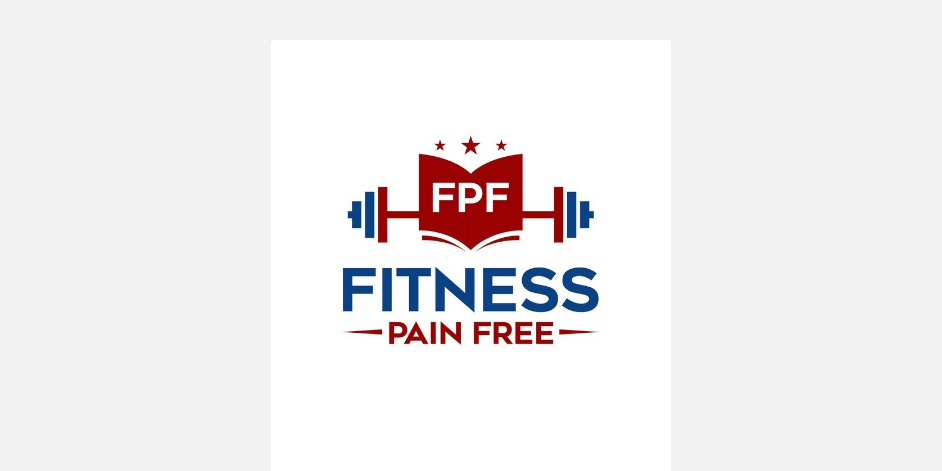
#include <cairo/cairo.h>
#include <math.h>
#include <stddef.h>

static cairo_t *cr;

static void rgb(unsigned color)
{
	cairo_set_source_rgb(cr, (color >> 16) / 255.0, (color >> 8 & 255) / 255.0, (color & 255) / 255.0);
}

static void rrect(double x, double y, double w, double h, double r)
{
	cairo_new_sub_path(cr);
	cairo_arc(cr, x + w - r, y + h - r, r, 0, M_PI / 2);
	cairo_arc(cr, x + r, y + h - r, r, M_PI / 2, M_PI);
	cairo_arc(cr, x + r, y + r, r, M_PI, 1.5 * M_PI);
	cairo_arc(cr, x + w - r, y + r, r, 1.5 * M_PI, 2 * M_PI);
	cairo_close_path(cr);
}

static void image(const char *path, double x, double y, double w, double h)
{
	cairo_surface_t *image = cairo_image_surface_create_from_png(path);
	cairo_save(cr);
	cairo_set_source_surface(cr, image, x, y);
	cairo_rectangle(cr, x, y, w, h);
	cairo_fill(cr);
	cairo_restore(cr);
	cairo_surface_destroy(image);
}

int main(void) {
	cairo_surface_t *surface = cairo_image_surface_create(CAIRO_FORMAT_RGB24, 942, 471);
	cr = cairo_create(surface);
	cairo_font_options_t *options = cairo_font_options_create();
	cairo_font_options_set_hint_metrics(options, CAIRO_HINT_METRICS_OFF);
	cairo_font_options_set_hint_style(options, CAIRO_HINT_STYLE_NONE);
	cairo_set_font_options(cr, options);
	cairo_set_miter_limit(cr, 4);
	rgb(0xf1f1f1);
	cairo_paint(cr);
	rgb(0xffffff);
	rrect(271, 40, 400, 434, 3);
	cairo_fill(cr);
	image("img/1.png", 336, 132, 270, 216);
	cairo_surface_write_to_png(surface, "page.png");
	cairo_font_options_destroy(options);
	cairo_destroy(cr);
	cairo_surface_destroy(surface);
	return 0;
}
